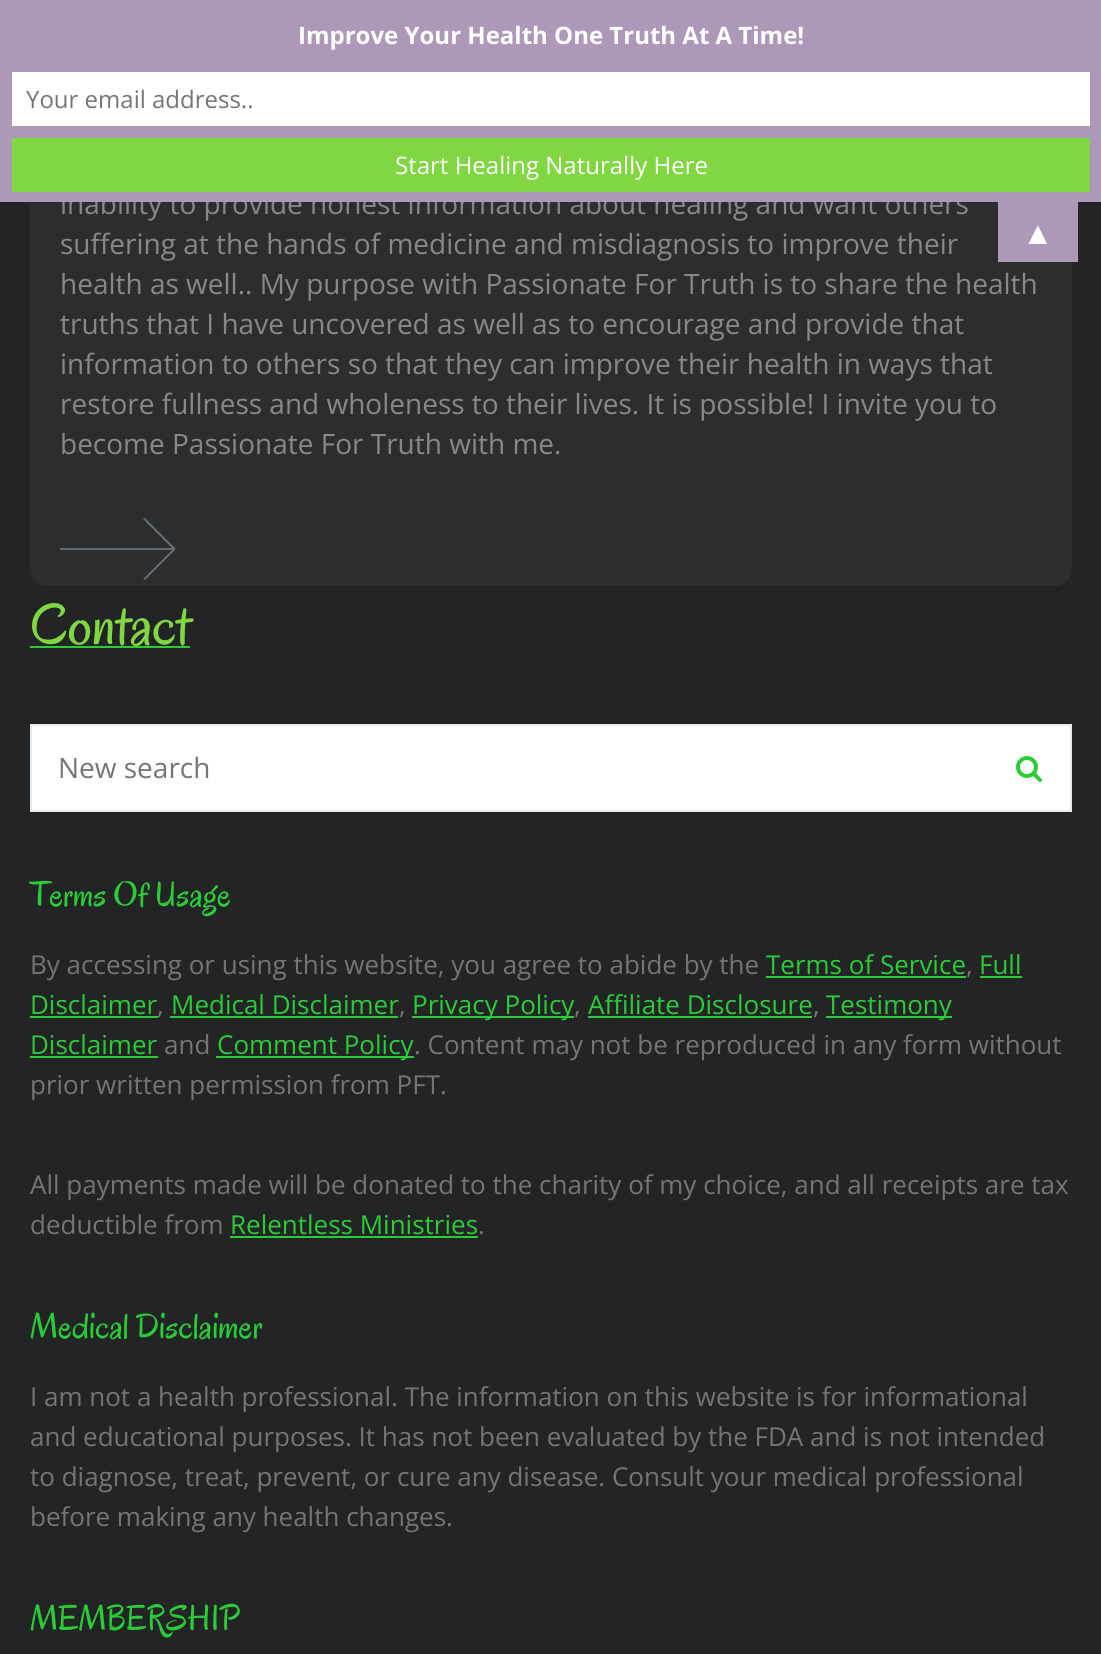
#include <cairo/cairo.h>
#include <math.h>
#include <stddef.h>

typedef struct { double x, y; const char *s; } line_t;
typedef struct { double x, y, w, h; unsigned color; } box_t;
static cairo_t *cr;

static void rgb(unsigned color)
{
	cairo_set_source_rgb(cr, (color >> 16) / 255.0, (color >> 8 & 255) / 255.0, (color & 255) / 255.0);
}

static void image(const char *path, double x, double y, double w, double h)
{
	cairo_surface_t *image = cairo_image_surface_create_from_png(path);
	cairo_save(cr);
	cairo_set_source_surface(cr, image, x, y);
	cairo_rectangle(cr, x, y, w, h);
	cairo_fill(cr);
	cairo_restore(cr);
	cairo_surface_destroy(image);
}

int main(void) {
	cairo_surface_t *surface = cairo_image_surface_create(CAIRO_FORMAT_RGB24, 1101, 1654);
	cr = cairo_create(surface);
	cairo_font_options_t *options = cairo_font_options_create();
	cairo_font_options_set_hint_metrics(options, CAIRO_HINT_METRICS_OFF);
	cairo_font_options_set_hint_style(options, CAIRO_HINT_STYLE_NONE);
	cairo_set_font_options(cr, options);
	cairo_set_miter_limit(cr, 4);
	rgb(0x222426);
	cairo_paint(cr);
	rgb(0x2b2d2f);
	cairo_new_path(cr);
	cairo_move_to(cr, 30, -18);
	cairo_line_to(cr, 1072, -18);
	cairo_line_to(cr, 1072, 568);
	cairo_curve_to(cr, 1072, 578, 1064, 586, 1054, 586);
	cairo_line_to(cr, 48, 586);
	cairo_curve_to(cr, 38, 586, 30, 578, 30, 568);
	cairo_close_path(cr);
	cairo_fill(cr);
	rgb(0xad98ba);
	cairo_rectangle(cr, 998, 202, 80, 60);
	cairo_fill(cr);
	rgb(0x666c72);
	cairo_new_path(cr);
	cairo_move_to(cr, 175, 548);
	cairo_line_to(cr, 145, 518);
	cairo_line_to(cr, 143, 519);
	cairo_line_to(cr, 172, 548);
	cairo_line_to(cr, 60, 548);
	cairo_line_to(cr, 60, 550);
	cairo_line_to(cr, 172, 550);
	cairo_line_to(cr, 143, 579);
	cairo_line_to(cr, 145, 580);
	cairo_line_to(cr, 175, 550);
	cairo_close_path(cr);
	cairo_fill(cr);
	rgb(0x2acd35);
	cairo_rectangle(cr, 30, 646, 160, 2);
	cairo_fill(cr);
	rgb(0xffffff);
	cairo_rectangle(cr, 31, 725, 1040, 86);
	cairo_fill_preserve(cr);
	rgb(0xe7ebee);
	cairo_stroke(cr);
	image("img/1.png", 1016, 756, 26, 26);
	{
		static const box_t items[] = {
			{766, 976, 200, 2, 0x2acd35},
			{980, 976, 42, 2, 0x2acd35},
			{30, 1016, 128, 2, 0x2acd35},
			{170, 1016, 228, 2, 0x2acd35},
			{412, 1016, 162, 2, 0x2acd35},
			{588, 1016, 224, 2, 0x2acd35},
			{826, 1016, 126, 2, 0x2acd35},
			{30, 1056, 128, 2, 0x2acd35},
			{216, 1056, 198, 2, 0x2acd35},
			{230, 1236, 248, 2, 0x2acd35},
		};
		for (size_t i = 0; i < sizeof items / sizeof *items; i++) {
			rgb(items[i].color);
			cairo_rectangle(cr, items[i].x, items[i].y, items[i].w, items[i].h);
			cairo_fill(cr);
		}
	}
	cairo_select_font_face(cr, "Liberation Serif", CAIRO_FONT_SLANT_NORMAL, CAIRO_FONT_WEIGHT_NORMAL);
	cairo_set_font_size(cr, 32);
	rgb(0xffffff);
	cairo_move_to(cr, 1022, 244);
	cairo_show_text(cr, "▲");
	cairo_select_font_face(cr, "Open Sans", CAIRO_FONT_SLANT_NORMAL, CAIRO_FONT_WEIGHT_NORMAL);
	cairo_set_font_size(cr, 28);
	rgb(0x888888);
	cairo_move_to(cr, 60, 214);
	cairo_show_text(cr, "inability to provide honest information about healing and want others");
	rgb(0xad98ba);
	cairo_rectangle(cr, 0, 0, 1101, 202);
	cairo_fill(cr);
	rgb(0x81d742);
	cairo_rectangle(cr, 12, 138, 1078, 54);
	cairo_fill(cr);
	cairo_set_font_size(cr, 24);
	rgb(0xffffff);
	cairo_move_to(cr, 395, 174);
	cairo_show_text(cr, "Start Healing Naturally Here");
	cairo_rectangle(cr, 12, 72, 1078, 54);
	cairo_fill(cr);
	rgb(0x757575);
	cairo_move_to(cr, 26, 108);
	cairo_show_text(cr, "Your email address..");
	cairo_select_font_face(cr, "Open Sans", CAIRO_FONT_SLANT_NORMAL, CAIRO_FONT_WEIGHT_BOLD);
	rgb(0xffffff);
	cairo_move_to(cr, 298, 44);
	cairo_show_text(cr, "Improve Your Health One Truth At A Time!");
	cairo_select_font_face(cr, "Open Sans", CAIRO_FONT_SLANT_NORMAL, CAIRO_FONT_WEIGHT_NORMAL);
	cairo_set_font_size(cr, 28);
	rgb(0x888888);
	{
		static const line_t items[] = {
			{60, 254, "suffering at the hands of medicine and misdiagnosis to improve their"},
			{60, 294, "health as well.. My purpose with Passionate For Truth is to share the health"},
			{60, 334, "truths that I have uncovered as well as to encourage and provide that"},
			{60, 374, "information to others so that they can improve their health in ways that"},
			{60, 414, "restore fullness and wholeness to their lives. It is possible! I invite you to"},
			{60, 454, "become Passionate For Truth with me."},
		};
		for (size_t i = 0; i < sizeof items / sizeof *items; i++) {
			cairo_move_to(cr, items[i].x, items[i].y);
			cairo_show_text(cr, items[i].s);
		}
	}
	cairo_select_font_face(cr, "Oregano", CAIRO_FONT_SLANT_NORMAL, CAIRO_FONT_WEIGHT_NORMAL);
	cairo_set_font_size(cr, 60);
	rgb(0x81d742);
	cairo_move_to(cr, 30, 644);
	cairo_show_text(cr, "Contact");
	cairo_select_font_face(cr, "Open Sans", CAIRO_FONT_SLANT_NORMAL, CAIRO_FONT_WEIGHT_NORMAL);
	cairo_set_font_size(cr, 28);
	rgb(0x757575);
	cairo_move_to(cr, 58, 778);
	cairo_show_text(cr, "New search");
	cairo_select_font_face(cr, "Oregano", CAIRO_FONT_SLANT_NORMAL, CAIRO_FONT_WEIGHT_NORMAL);
	cairo_set_font_size(cr, 36);
	rgb(0x2acd35);
	cairo_move_to(cr, 30, 906);
	cairo_show_text(cr, "Terms Of Usage");
	cairo_select_font_face(cr, "Open Sans", CAIRO_FONT_SLANT_NORMAL, CAIRO_FONT_WEIGHT_NORMAL);
	cairo_set_font_size(cr, 26);
	rgb(0x757575);
	cairo_move_to(cr, 30, 974);
	cairo_show_text(cr, "By accessing or using this website, you agree to abide by the");
	rgb(0x2acd35);
	cairo_move_to(cr, 766, 974);
	cairo_show_text(cr, "Terms of Service");
	rgb(0x757575);
	cairo_move_to(cr, 966, 974);
	cairo_show_text(cr, ",");
	rgb(0x2acd35);
	cairo_move_to(cr, 979, 974);
	cairo_show_text(cr, "Full");
	cairo_move_to(cr, 30, 1014);
	cairo_show_text(cr, "Disclaimer");
	rgb(0x757575);
	cairo_move_to(cr, 157, 1014);
	cairo_show_text(cr, ",");
	rgb(0x2acd35);
	cairo_move_to(cr, 171, 1014);
	cairo_show_text(cr, "Medical Disclaimer");
	rgb(0x757575);
	cairo_move_to(cr, 399, 1014);
	cairo_show_text(cr, ",");
	rgb(0x2acd35);
	cairo_move_to(cr, 412, 1014);
	cairo_show_text(cr, "Privacy Policy");
	rgb(0x757575);
	cairo_move_to(cr, 574, 1014);
	cairo_show_text(cr, ",");
	rgb(0x2acd35);
	cairo_move_to(cr, 588, 1014);
	cairo_show_text(cr, "Affiliate Disclosure");
	rgb(0x757575);
	cairo_move_to(cr, 813, 1014);
	cairo_show_text(cr, ",");
	rgb(0x2acd35);
	cairo_move_to(cr, 826, 1014);
	cairo_show_text(cr, "Testimony");
	cairo_move_to(cr, 30, 1054);
	cairo_show_text(cr, "Disclaimer");
	rgb(0x757575);
	cairo_move_to(cr, 164, 1054);
	cairo_show_text(cr, "and");
	rgb(0x2acd35);
	cairo_move_to(cr, 217, 1054);
	cairo_show_text(cr, "Comment Policy");
	rgb(0x757575);
	{
		static const line_t items[] = {
			{414, 1054, ". Content may not be reproduced in any form without"},
			{30, 1094, "prior written permission from PFT."},
			{30, 1194, "All payments made will be donated to the charity of my choice, and all receipts are tax"},
			{30, 1234, "deductible from"},
		};
		for (size_t i = 0; i < sizeof items / sizeof *items; i++) {
			cairo_move_to(cr, items[i].x, items[i].y);
			cairo_show_text(cr, items[i].s);
		}
	}
	rgb(0x2acd35);
	cairo_move_to(cr, 230, 1234);
	cairo_show_text(cr, "Relentless Ministries");
	rgb(0x757575);
	cairo_move_to(cr, 478, 1234);
	cairo_show_text(cr, ".");
	cairo_select_font_face(cr, "Oregano", CAIRO_FONT_SLANT_NORMAL, CAIRO_FONT_WEIGHT_NORMAL);
	cairo_set_font_size(cr, 36);
	rgb(0x2acd35);
	cairo_move_to(cr, 30, 1338);
	cairo_show_text(cr, "Medical Disclaimer");
	cairo_select_font_face(cr, "Open Sans", CAIRO_FONT_SLANT_NORMAL, CAIRO_FONT_WEIGHT_NORMAL);
	cairo_set_font_size(cr, 26);
	rgb(0x757575);
	{
		static const line_t items[] = {
			{30, 1406, "I am not a health professional. The information on this website is for informational"},
			{30, 1446, "and educational purposes. It has not been evaluated by the FDA and is not intended"},
			{30, 1486, "to diagnose, treat, prevent, or cure any disease. Consult your medical professional"},
			{30, 1526, "before making any health changes."},
		};
		for (size_t i = 0; i < sizeof items / sizeof *items; i++) {
			cairo_move_to(cr, items[i].x, items[i].y);
			cairo_show_text(cr, items[i].s);
		}
	}
	cairo_select_font_face(cr, "Oregano", CAIRO_FONT_SLANT_NORMAL, CAIRO_FONT_WEIGHT_NORMAL);
	cairo_set_font_size(cr, 36);
	rgb(0x2acd35);
	cairo_move_to(cr, 30, 1630);
	cairo_show_text(cr, "MEMBERSHIP");
	cairo_surface_write_to_png(surface, "page.png");
	cairo_font_options_destroy(options);
	cairo_destroy(cr);
	cairo_surface_destroy(surface);
	return 0;
}
